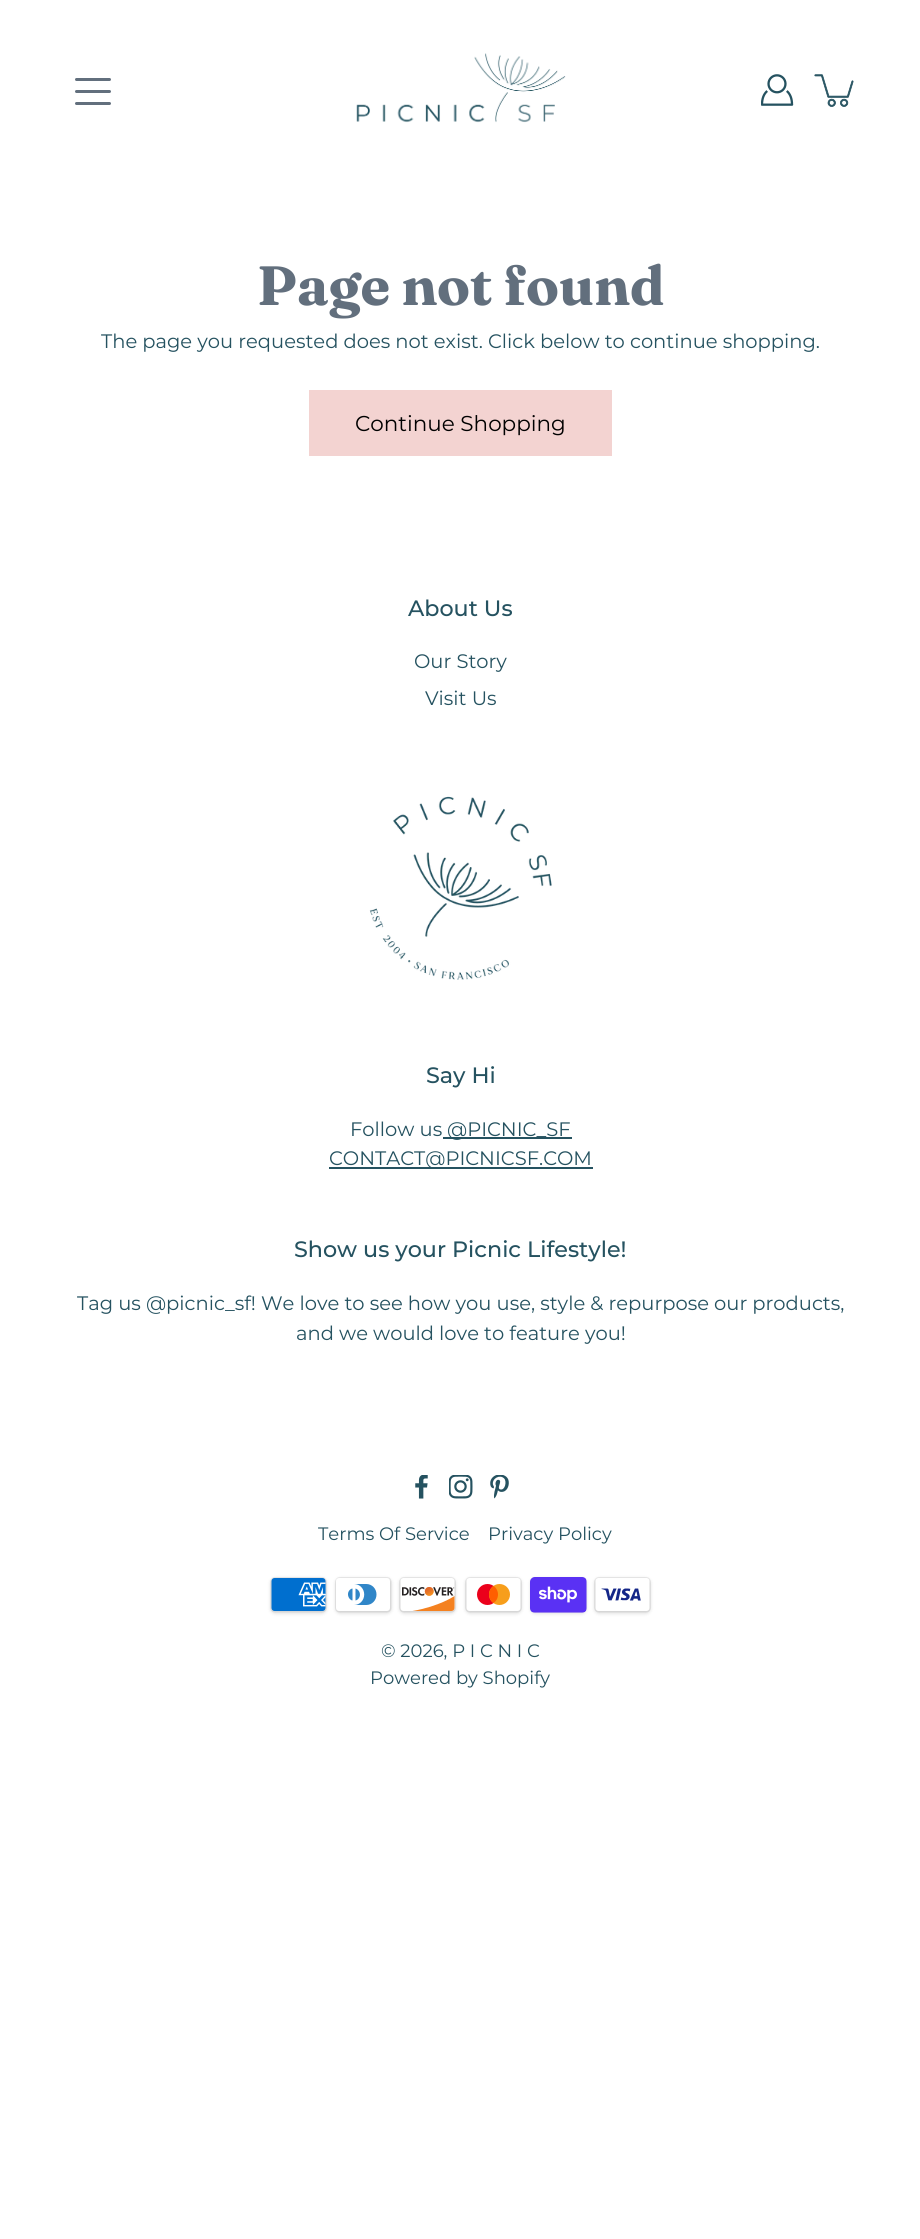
#include <cairo/cairo.h>
#include <math.h>
#include <stddef.h>

typedef struct { double x, y; const char *s; } line_t;
static cairo_t *cr;

static void rgb(unsigned color)
{
	cairo_set_source_rgb(cr, (color >> 16) / 255.0, (color >> 8 & 255) / 255.0, (color & 255) / 255.0);
}

static void rrect(double x, double y, double w, double h, double r)
{
	cairo_new_sub_path(cr);
	cairo_arc(cr, x + w - r, y + h - r, r, 0, M_PI / 2);
	cairo_arc(cr, x + r, y + h - r, r, M_PI / 2, M_PI);
	cairo_arc(cr, x + r, y + r, r, M_PI, 1.5 * M_PI);
	cairo_arc(cr, x + w - r, y + r, r, 1.5 * M_PI, 2 * M_PI);
	cairo_close_path(cr);
}

static void soft_shadow(double x, double y, double w, double h, double r, double blur, double alpha)
{
	cairo_push_group_with_content(cr, CAIRO_CONTENT_ALPHA);
	cairo_set_operator(cr, CAIRO_OPERATOR_SOURCE);
	for (int i = 15; i >= -15 && fmin(w, h) + blur * i / 3 > 0; i -= 2) {
		double e = blur * i / 6;
		cairo_set_source_rgba(cr, 0, 0, 0, alpha * erfc((i - 1) / 8.5) / 2);
		rrect(x - e, y - e, w + 2 * e, h + 2 * e, fmax(0, fmin(r + e + blur * .6, fmin(w, h) / 2 + e)));
		cairo_fill(cr);
	}
	cairo_pattern_t *soft = cairo_pop_group(cr);
	cairo_mask(cr, soft);
	cairo_pattern_destroy(soft);
}

static void image(const char *path, double x, double y, double w, double h)
{
	cairo_surface_t *image = cairo_image_surface_create_from_png(path);
	cairo_save(cr);
	cairo_set_source_surface(cr, image, x, y);
	cairo_rectangle(cr, x, y, w, h);
	cairo_fill(cr);
	cairo_restore(cr);
	cairo_surface_destroy(image);
}

int main(void) {
	cairo_surface_t *surface = cairo_image_surface_create(CAIRO_FORMAT_RGB24, 920, 2239);
	cr = cairo_create(surface);
	cairo_font_options_t *options = cairo_font_options_create();
	cairo_font_options_set_hint_metrics(options, CAIRO_HINT_METRICS_OFF);
	cairo_font_options_set_hint_style(options, CAIRO_HINT_STYLE_NONE);
	cairo_set_font_options(cr, options);
	cairo_set_miter_limit(cr, 4);
	rgb(0xffffff);
	cairo_paint(cr);
	image("img/1.png", 356, 53, 210, 70);
	rgb(0x626f7d);
	rrect(75, 90, 36, 3, 1.5);
	cairo_fill(cr);
	rrect(75, 78, 36, 3, 1.5);
	cairo_fill(cr);
	rrect(75, 102, 36, 3, 1.5);
	cairo_fill(cr);
	image("img/2.png", 761, 74, 33, 32);
	image("img/3.png", 814, 74, 40, 33);
	rgb(0xf3d3d1);
	cairo_rectangle(cr, 309, 390, 303, 66);
	cairo_fill(cr);
	image("img/4.png", 369, 796, 183, 184);
	rgb(0x255260);
	cairo_rectangle(cr, 443, 1137, 129, 2);
	cairo_fill(cr);
	cairo_rectangle(cr, 329, 1167, 264, 2);
	cairo_fill(cr);
	image("img/5.png", 415, 1475, 13, 24);
	image("img/6.png", 449, 1475, 24, 24);
	image("img/7.png", 490, 1475, 19, 24);
	rgb(0x000000);
	soft_shadow(270, 1578, 57, 36, 5, 1.5, 0.1);
	image("img/8.png", 270, 1577, 57, 36);
	soft_shadow(335, 1578, 57, 36, 5, 1.5, 0.1);
	image("img/9.png", 335, 1577, 57, 36);
	soft_shadow(399, 1578, 57, 36, 5, 1.5, 0.1);
	image("img/10.png", 399, 1577, 57, 36);
	soft_shadow(465, 1578, 57, 36, 5, 1.5, 0.1);
	image("img/11.png", 465, 1577, 57, 36);
	soft_shadow(530, 1578, 57, 36, 5, 1.5, 0.1);
	image("img/12.png", 530, 1577, 57, 36);
	soft_shadow(594, 1578, 57, 36, 5, 1.5, 0.1);
	image("img/13.png", 594, 1577, 57, 36);
	cairo_select_font_face(cr, "Fraunces", CAIRO_FONT_SLANT_NORMAL, CAIRO_FONT_WEIGHT_BOLD);
	cairo_set_font_size(cr, 55.25);
	rgb(0x626f7d);
	cairo_move_to(cr, 257, 305);
	cairo_show_text(cr, "Page not found");
	cairo_select_font_face(cr, "Montserrat Thin", CAIRO_FONT_SLANT_NORMAL, CAIRO_FONT_WEIGHT_NORMAL);
	cairo_set_font_size(cr, 19.5);
	rgb(0x255260);
	cairo_move_to(cr, 101, 348);
	cairo_show_text(cr, "The page you requested does not exist. Click below to continue shopping.");
	cairo_set_font_size(cr, 21.5);
	rgb(0x000000);
	cairo_move_to(cr, 355, 431);
	cairo_show_text(cr, "Continue Shopping");
	cairo_select_font_face(cr, "Montserrat Medium", CAIRO_FONT_SLANT_NORMAL, CAIRO_FONT_WEIGHT_NORMAL);
	cairo_set_font_size(cr, 22.25);
	rgb(0x255260);
	cairo_move_to(cr, 408, 616);
	cairo_show_text(cr, "About Us");
	cairo_select_font_face(cr, "Montserrat Thin", CAIRO_FONT_SLANT_NORMAL, CAIRO_FONT_WEIGHT_NORMAL);
	cairo_set_font_size(cr, 19.5);
	cairo_move_to(cr, 414, 668);
	cairo_show_text(cr, "Our Story");
	cairo_move_to(cr, 425, 705);
	cairo_show_text(cr, "Visit Us");
	cairo_select_font_face(cr, "Montserrat Medium", CAIRO_FONT_SLANT_NORMAL, CAIRO_FONT_WEIGHT_NORMAL);
	cairo_set_font_size(cr, 22.25);
	cairo_move_to(cr, 426, 1083);
	cairo_show_text(cr, "Say Hi");
	cairo_select_font_face(cr, "Montserrat Thin", CAIRO_FONT_SLANT_NORMAL, CAIRO_FONT_WEIGHT_NORMAL);
	cairo_set_font_size(cr, 19.5);
	{
		static const line_t items[] = {
			{350, 1136, "Follow us"},
			{447, 1136, "@PICNIC_SF"},
			{329, 1165, "CONTACT@PICNICSF.COM"},
		};
		for (size_t i = 0; i < sizeof items / sizeof *items; i++) {
			cairo_move_to(cr, items[i].x, items[i].y);
			cairo_show_text(cr, items[i].s);
		}
	}
	cairo_select_font_face(cr, "Montserrat Medium", CAIRO_FONT_SLANT_NORMAL, CAIRO_FONT_WEIGHT_NORMAL);
	cairo_set_font_size(cr, 22.25);
	cairo_move_to(cr, 294, 1257);
	cairo_show_text(cr, "Show us your Picnic Lifestyle!");
	cairo_select_font_face(cr, "Montserrat Thin", CAIRO_FONT_SLANT_NORMAL, CAIRO_FONT_WEIGHT_NORMAL);
	cairo_set_font_size(cr, 19.5);
	cairo_move_to(cr, 77, 1310);
	cairo_show_text(cr, "Tag us @picnic_sf! We love to see how you use, style & repurpose our products,");
	cairo_move_to(cr, 296, 1340);
	cairo_show_text(cr, "and we would love to feature you!");
	cairo_set_font_size(cr, 18);
	{
		static const line_t items[] = {
			{318, 1540, "Terms Of Service"},
			{488, 1540, "Privacy Policy"},
			{381, 1657, "© 2026, P I C N I C"},
			{370, 1684, "Powered by Shopify"},
		};
		for (size_t i = 0; i < sizeof items / sizeof *items; i++) {
			cairo_move_to(cr, items[i].x, items[i].y);
			cairo_show_text(cr, items[i].s);
		}
	}
	cairo_surface_write_to_png(surface, "page.png");
	cairo_font_options_destroy(options);
	cairo_destroy(cr);
	cairo_surface_destroy(surface);
	return 0;
}
